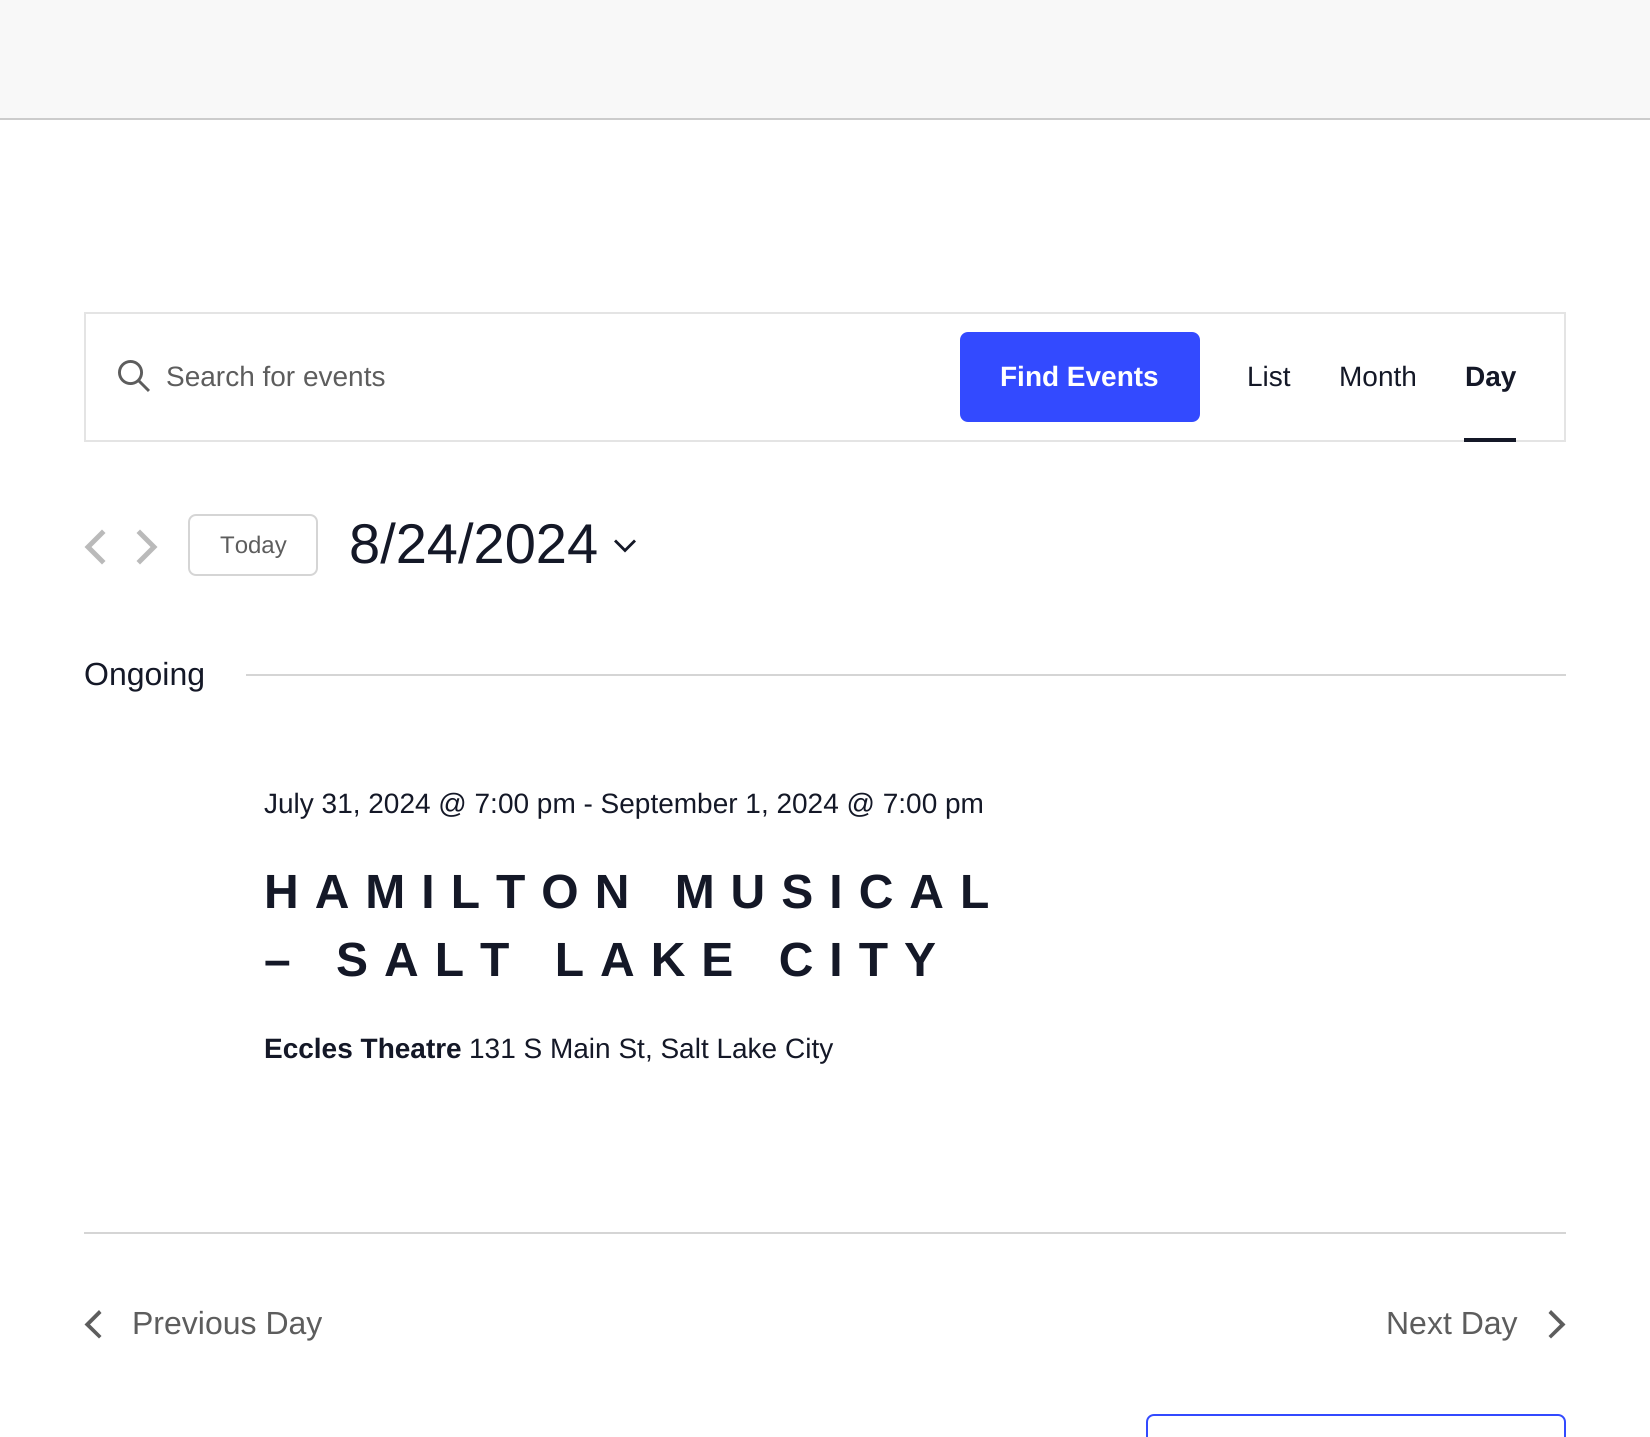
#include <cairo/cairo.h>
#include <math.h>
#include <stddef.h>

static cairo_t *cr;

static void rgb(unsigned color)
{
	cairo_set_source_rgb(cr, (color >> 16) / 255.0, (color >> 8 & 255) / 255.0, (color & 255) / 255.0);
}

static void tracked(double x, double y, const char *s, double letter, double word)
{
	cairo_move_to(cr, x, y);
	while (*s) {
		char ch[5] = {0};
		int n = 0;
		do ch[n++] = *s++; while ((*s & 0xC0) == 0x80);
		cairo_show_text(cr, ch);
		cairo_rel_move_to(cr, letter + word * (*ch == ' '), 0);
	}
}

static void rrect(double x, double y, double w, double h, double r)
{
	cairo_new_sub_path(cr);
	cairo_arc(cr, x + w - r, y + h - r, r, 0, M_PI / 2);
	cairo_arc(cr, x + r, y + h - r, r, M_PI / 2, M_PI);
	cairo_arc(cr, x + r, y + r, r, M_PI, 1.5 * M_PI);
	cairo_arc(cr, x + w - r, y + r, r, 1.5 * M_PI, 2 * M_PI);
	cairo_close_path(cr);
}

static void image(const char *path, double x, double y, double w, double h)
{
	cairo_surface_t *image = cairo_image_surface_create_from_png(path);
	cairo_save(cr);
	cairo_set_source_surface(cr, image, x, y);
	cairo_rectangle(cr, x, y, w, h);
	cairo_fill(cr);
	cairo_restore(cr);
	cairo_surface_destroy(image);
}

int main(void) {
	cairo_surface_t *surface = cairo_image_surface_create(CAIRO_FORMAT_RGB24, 1650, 1437);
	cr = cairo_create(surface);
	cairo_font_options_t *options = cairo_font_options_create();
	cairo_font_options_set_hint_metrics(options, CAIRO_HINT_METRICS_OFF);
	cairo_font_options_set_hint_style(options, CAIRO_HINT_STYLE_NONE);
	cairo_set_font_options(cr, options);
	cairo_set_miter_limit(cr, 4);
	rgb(0xffffff);
	cairo_paint(cr);
	rgb(0xf8f8f8);
	cairo_rectangle(cr, 0, 0, 1650, 118);
	cairo_fill(cr);
	rgb(0xcccccc);
	cairo_rectangle(cr, 0, 118, 1650, 2);
	cairo_fill(cr);
	cairo_rectangle(cr, 85, 313, 1480, 128);
	rgb(0xe4e4e4);
	cairo_stroke(cr);
	image("img/1.png", 118, 360, 32, 32);
	rgb(0x334aff);
	rrect(960, 332, 240, 90, 8);
	cairo_fill(cr);
	rgb(0x141827);
	cairo_rectangle(cr, 1464, 438, 52, 4);
	cairo_fill(cr);
	rgb(0xbababa);
	cairo_new_path(cr);
	cairo_move_to(cr, 105.5, 561);
	cairo_line_to(cr, 102, 564.5);
	cairo_line_to(cr, 84.5, 547);
	cairo_line_to(cr, 102, 529.5);
	cairo_line_to(cr, 105.5, 533);
	cairo_line_to(cr, 91.5, 547);
	cairo_close_path(cr);
	cairo_fill(cr);
	cairo_new_path(cr);
	cairo_move_to(cr, 136.5, 533);
	cairo_line_to(cr, 140, 529.5);
	cairo_line_to(cr, 157.5, 547);
	cairo_line_to(cr, 140, 564.5);
	cairo_line_to(cr, 136.5, 561);
	cairo_line_to(cr, 150.5, 547);
	cairo_close_path(cr);
	cairo_fill(cr);
	rrect(189, 515, 128, 60, 7);
	rgb(0xd5d5d5);
	cairo_stroke(cr);
	rgb(0x141827);
	cairo_set_fill_rule(cr, CAIRO_FILL_RULE_EVEN_ODD);
	cairo_new_path(cr);
	cairo_move_to(cr, 616, 539.5);
	cairo_line_to(cr, 625, 548.5);
	cairo_line_to(cr, 634, 539.5);
	cairo_line_to(cr, 636, 541.5);
	cairo_line_to(cr, 625, 552.5);
	cairo_line_to(cr, 614, 541.5);
	cairo_close_path(cr);
	cairo_fill(cr);
	rgb(0xd5d5d5);
	cairo_rectangle(cr, 246, 674, 1320, 2);
	cairo_fill(cr);
	cairo_rectangle(cr, 84, 1232, 1482, 2);
	cairo_fill(cr);
	rgb(0x5d5d5d);
	cairo_set_fill_rule(cr, CAIRO_FILL_RULE_WINDING);
	cairo_new_path(cr);
	cairo_move_to(cr, 101.5, 1336);
	cairo_line_to(cr, 99, 1338.5);
	cairo_line_to(cr, 84.5, 1324.5);
	cairo_line_to(cr, 99, 1310);
	cairo_line_to(cr, 101.5, 1313);
	cairo_line_to(cr, 90, 1324.5);
	cairo_close_path(cr);
	cairo_fill(cr);
	cairo_new_path(cr);
	cairo_move_to(cr, 1548.5, 1313);
	cairo_line_to(cr, 1551, 1310);
	cairo_line_to(cr, 1565.5, 1324.5);
	cairo_line_to(cr, 1551, 1338.5);
	cairo_line_to(cr, 1548.5, 1336);
	cairo_line_to(cr, 1560, 1324.5);
	cairo_close_path(cr);
	cairo_fill(cr);
	rrect(1147, 1415, 418, 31, 7);
	rgb(0x334aff);
	cairo_stroke(cr);
	cairo_select_font_face(cr, "Liberation Sans", CAIRO_FONT_SLANT_NORMAL, CAIRO_FONT_WEIGHT_NORMAL);
	cairo_set_font_size(cr, 28);
	rgb(0x5d5d5d);
	cairo_move_to(cr, 166, 386);
	cairo_show_text(cr, "Search for events");
	cairo_select_font_face(cr, "Liberation Sans", CAIRO_FONT_SLANT_NORMAL, CAIRO_FONT_WEIGHT_BOLD);
	rgb(0xffffff);
	cairo_move_to(cr, 1000, 386);
	cairo_show_text(cr, "Find Events");
	cairo_select_font_face(cr, "Liberation Sans", CAIRO_FONT_SLANT_NORMAL, CAIRO_FONT_WEIGHT_NORMAL);
	rgb(0x141827);
	cairo_move_to(cr, 1247, 386);
	cairo_show_text(cr, "List");
	cairo_move_to(cr, 1339, 386);
	cairo_show_text(cr, "Month");
	cairo_select_font_face(cr, "Liberation Sans", CAIRO_FONT_SLANT_NORMAL, CAIRO_FONT_WEIGHT_BOLD);
	cairo_move_to(cr, 1465, 386);
	cairo_show_text(cr, "Day");
	cairo_select_font_face(cr, "Liberation Sans", CAIRO_FONT_SLANT_NORMAL, CAIRO_FONT_WEIGHT_NORMAL);
	cairo_set_font_size(cr, 24);
	rgb(0x5d5d5d);
	cairo_move_to(cr, 220, 553);
	cairo_show_text(cr, "Today");
	cairo_set_font_size(cr, 56);
	rgb(0x141827);
	cairo_move_to(cr, 349, 563);
	cairo_show_text(cr, "8/24/2024");
	cairo_set_font_size(cr, 32);
	cairo_move_to(cr, 84, 685);
	cairo_show_text(cr, "Ongoing");
	cairo_set_font_size(cr, 28);
	cairo_move_to(cr, 264, 813);
	cairo_show_text(cr, "July 31, 2024 @ 7:00 pm - September 1, 2024 @ 7:00 pm");
	cairo_select_font_face(cr, "Liberation Sans", CAIRO_FONT_SLANT_NORMAL, CAIRO_FONT_WEIGHT_BOLD);
	cairo_set_font_size(cr, 48);
	tracked(264, 908, "HAMILTON MUSICAL", 16, 0);
	tracked(264, 976, "– SALT LAKE CITY", 16, 0);
	cairo_set_font_size(cr, 28);
	cairo_move_to(cr, 264, 1058);
	cairo_show_text(cr, "Eccles Theatre");
	cairo_select_font_face(cr, "Liberation Sans", CAIRO_FONT_SLANT_NORMAL, CAIRO_FONT_WEIGHT_NORMAL);
	cairo_move_to(cr, 469, 1058);
	cairo_show_text(cr, "131 S Main St, Salt Lake City");
	cairo_set_font_size(cr, 32);
	rgb(0x5d5d5d);
	cairo_move_to(cr, 132, 1334);
	cairo_show_text(cr, "Previous Day");
	cairo_move_to(cr, 1386, 1334);
	cairo_show_text(cr, "Next Day");
	cairo_surface_write_to_png(surface, "page.png");
	cairo_font_options_destroy(options);
	cairo_destroy(cr);
	cairo_surface_destroy(surface);
	return 0;
}
